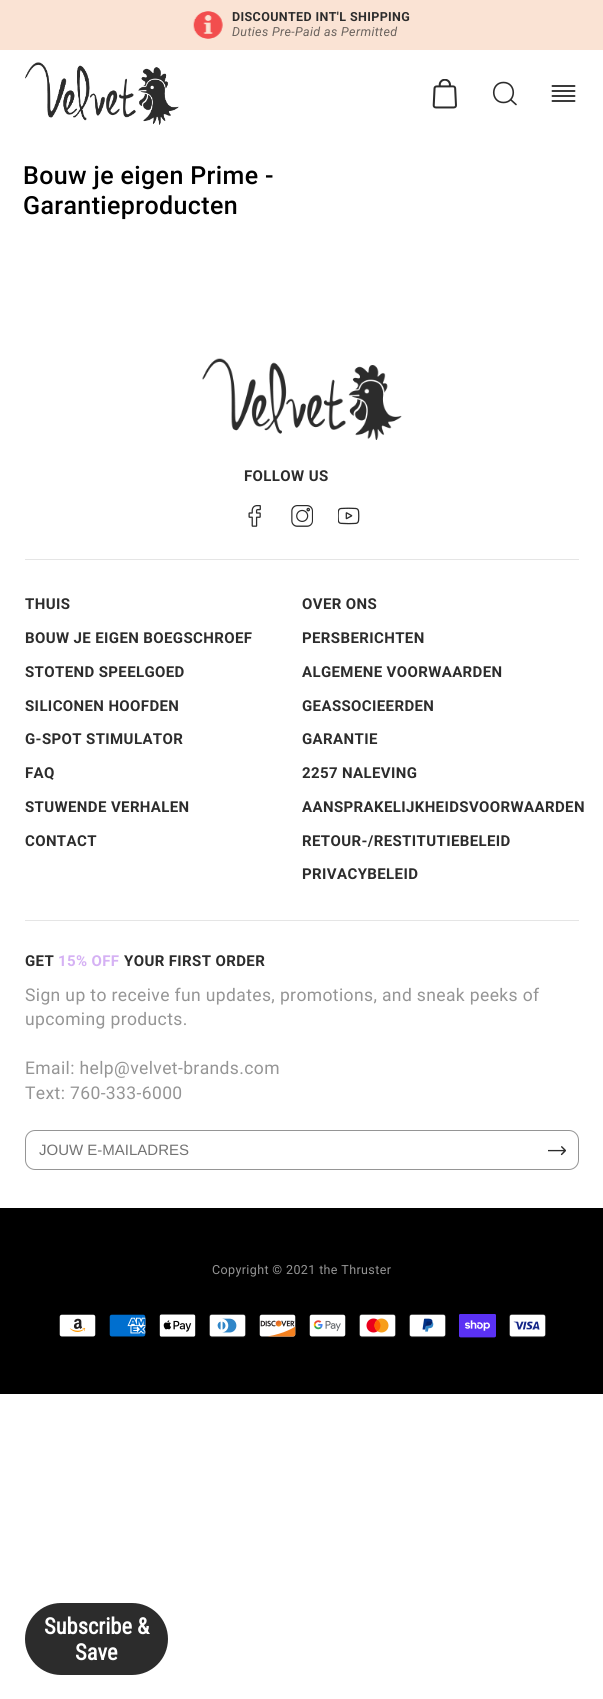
#include <cairo/cairo.h>
#include <math.h>
#include <stddef.h>

typedef struct { double x, y; const char *s; } line_t;
static cairo_t *cr;

static void rgb(unsigned color)
{
	cairo_set_source_rgb(cr, (color >> 16) / 255.0, (color >> 8 & 255) / 255.0, (color & 255) / 255.0);
}

static void tracked(double x, double y, const char *s, double letter, double word)
{
	cairo_move_to(cr, x, y);
	while (*s) {
		char ch[5] = {0};
		int n = 0;
		do ch[n++] = *s++; while ((*s & 0xC0) == 0x80);
		cairo_show_text(cr, ch);
		cairo_rel_move_to(cr, letter + word * (*ch == ' '), 0);
	}
}

static void rrect(double x, double y, double w, double h, double r)
{
	cairo_new_sub_path(cr);
	cairo_arc(cr, x + w - r, y + h - r, r, 0, M_PI / 2);
	cairo_arc(cr, x + r, y + h - r, r, M_PI / 2, M_PI);
	cairo_arc(cr, x + r, y + r, r, M_PI, 1.5 * M_PI);
	cairo_arc(cr, x + w - r, y + r, r, 1.5 * M_PI, 2 * M_PI);
	cairo_close_path(cr);
}

static void image(const char *path, double x, double y, double w, double h)
{
	cairo_surface_t *image = cairo_image_surface_create_from_png(path);
	cairo_save(cr);
	cairo_set_source_surface(cr, image, x, y);
	cairo_rectangle(cr, x, y, w, h);
	cairo_fill(cr);
	cairo_restore(cr);
	cairo_surface_destroy(image);
}

int main(void) {
	cairo_surface_t *surface = cairo_image_surface_create(CAIRO_FORMAT_RGB24, 603, 1699);
	cr = cairo_create(surface);
	cairo_font_options_t *options = cairo_font_options_create();
	cairo_font_options_set_hint_metrics(options, CAIRO_HINT_METRICS_OFF);
	cairo_font_options_set_hint_style(options, CAIRO_HINT_STYLE_NONE);
	cairo_set_font_options(cr, options);
	cairo_set_miter_limit(cr, 4);
	rgb(0xffffff);
	cairo_paint(cr);
	rgb(0xfae3d4);
	cairo_rectangle(cr, 0, 0, 603, 50);
	cairo_fill(cr);
	image("img/1.png", 193, 11, 30, 28);
	image("img/2.png", 25, 62, 154, 63);
	image("img/3.png", 432, 79, 25, 30);
	cairo_new_path(cr);
	cairo_move_to(cr, 503.5, 102.5);
	cairo_curve_to(cr, 516.5, 102.5, 516.5, 82.5, 503.5, 82.5);
	cairo_curve_to(cr, 490.5, 82.5, 490.5, 102.5, 503.5, 102.5);
	cairo_close_path(cr);
	cairo_move_to(cr, 516, 104.5);
	cairo_line_to(cr, 510.5, 99.5);
	rgb(0x2c2c2c);
	cairo_set_line_width(cr, 1.6);
	cairo_set_line_cap(cr, CAIRO_LINE_CAP_ROUND);
	cairo_set_line_join(cr, CAIRO_LINE_JOIN_ROUND);
	cairo_stroke(cr);
	cairo_new_path(cr);
	cairo_move_to(cr, 574.5, 91);
	cairo_line_to(cr, 552.5, 91);
	cairo_move_to(cr, 574.5, 86);
	cairo_line_to(cr, 552.5, 86);
	cairo_move_to(cr, 574.5, 96);
	cairo_line_to(cr, 552.5, 96);
	cairo_move_to(cr, 574.5, 101);
	cairo_line_to(cr, 552.5, 101);
	cairo_set_line_width(cr, 1.9);
	cairo_stroke(cr);
	rgb(0xe5e5e5);
	cairo_rectangle(cr, 25, 559, 554, 1);
	cairo_fill(cr);
	image("img/4.png", 202, 358, 200, 82);
	image("img/5.png", 248, 505, 13, 22);
	image("img/6.png", 291, 505, 22, 22);
	image("img/7.png", 338, 507, 22, 18);
	cairo_rectangle(cr, 25, 920, 554, 1);
	cairo_fill(cr);
	rrect(25.5, 1130.5, 553, 39, 9.5);
	rgb(0x959595);
	cairo_set_line_width(cr, 1);
	cairo_set_line_cap(cr, CAIRO_LINE_CAP_BUTT);
	cairo_set_line_join(cr, CAIRO_LINE_JOIN_MITER);
	cairo_stroke(cr);
	image("img/8.png", 548, 1146, 18, 10);
	rgb(0x000000);
	cairo_rectangle(cr, 0, 1208, 603, 186);
	cairo_fill(cr);
	image("img/9.png", 59, 1314, 37, 23);
	image("img/10.png", 109, 1314, 37, 23);
	image("img/11.png", 159, 1314, 37, 23);
	image("img/12.png", 209, 1314, 37, 24);
	image("img/13.png", 259, 1314, 37, 23);
	image("img/14.png", 309, 1314, 37, 23);
	image("img/15.png", 359, 1314, 37, 24);
	image("img/16.png", 409, 1314, 37, 24);
	image("img/17.png", 459, 1314, 37, 24);
	image("img/18.png", 509, 1314, 37, 24);
	rgb(0x2c2c2c);
	rrect(25, 1603, 143, 72, 36);
	cairo_fill(cr);
	cairo_select_font_face(cr, "Roboto", CAIRO_FONT_SLANT_NORMAL, CAIRO_FONT_WEIGHT_BOLD);
	cairo_set_font_size(cr, 12.5);
	tracked(232, 21, "DISCOUNTED INT'L SHIPPING", 0.38, 0);
	cairo_select_font_face(cr, "Roboto", CAIRO_FONT_SLANT_ITALIC, CAIRO_FONT_WEIGHT_NORMAL);
	rgb(0x6a635e);
	tracked(232, 36, "Duties Pre-Paid as Permitted", 0.38, 0);
	cairo_select_font_face(cr, "Roboto Medium", CAIRO_FONT_SLANT_NORMAL, CAIRO_FONT_WEIGHT_NORMAL);
	cairo_set_font_size(cr, 25);
	rgb(0x000000);
	tracked(23, 184, "Bouw je eigen Prime -", 0.38, 0);
	tracked(23, 214, "Garantieproducten", 0.38, 0);
	cairo_select_font_face(cr, "Roboto", CAIRO_FONT_SLANT_NORMAL, CAIRO_FONT_WEIGHT_BOLD);
	cairo_set_font_size(cr, 15);
	rgb(0x2c2c2c);
	{
		static const line_t items[] = {
			{244, 481, "FOLLOW US"},
			{25, 609, "THUIS"},
			{25, 643, "BOUW JE EIGEN BOEGSCHROEF"},
			{25, 677, "STOTEND SPEELGOED"},
			{25, 711, "SILICONEN HOOFDEN"},
			{25, 744, "G-SPOT STIMULATOR"},
			{25, 778, "FAQ"},
			{25, 812, "STUWENDE VERHALEN"},
			{25, 846, "CONTACT"},
			{302, 609, "OVER ONS"},
			{302, 643, "PERSBERICHTEN"},
			{302, 677, "ALGEMENE VOORWAARDEN"},
			{302, 711, "GEASSOCIEERDEN"},
			{302, 744, "GARANTIE"},
			{302, 778, "2257 NALEVING"},
			{302, 812, "AANSPRAKELIJKHEIDSVOORWAARDEN"},
			{302, 846, "RETOUR-/RESTITUTIEBELEID"},
			{302, 879, "PRIVACYBELEID"},
			{25, 966, "GET"},
		};
		for (size_t i = 0; i < sizeof items / sizeof *items; i++) {
			tracked(items[i].x, items[i].y, items[i].s, 0.38, 0);
		}
	}
	rgb(0xd5b1f4);
	tracked(58, 966, "15% OFF", 0.38, 0);
	rgb(0x2c2c2c);
	tracked(124, 966, "YOUR FIRST ORDER", 0.38, 0);
	cairo_select_font_face(cr, "Roboto", CAIRO_FONT_SLANT_NORMAL, CAIRO_FONT_WEIGHT_NORMAL);
	cairo_set_font_size(cr, 17.5);
	rgb(0x959595);
	{
		static const line_t items[] = {
			{25, 1001, "Sign up to receive fun updates, promotions, and sneak peeks of"},
			{25, 1025, "upcoming products."},
			{25, 1074, "Email: help@velvet-brands.com"},
			{25, 1099, "Text: 760-333-6000"},
		};
		for (size_t i = 0; i < sizeof items / sizeof *items; i++) {
			tracked(items[i].x, items[i].y, items[i].s, 0.38, 0);
		}
	}
	cairo_select_font_face(cr, "Liberation Sans", CAIRO_FONT_SLANT_NORMAL, CAIRO_FONT_WEIGHT_NORMAL);
	cairo_set_font_size(cr, 15);
	rgb(0x737373);
	cairo_move_to(cr, 39, 1155);
	cairo_show_text(cr, "JOUW E-MAILADRES");
	cairo_select_font_face(cr, "Roboto", CAIRO_FONT_SLANT_NORMAL, CAIRO_FONT_WEIGHT_NORMAL);
	cairo_set_font_size(cr, 12.5);
	rgb(0x959595);
	tracked(212, 1274, "Copyright © 2021 the Thruster", 0.38, 0);
	cairo_select_font_face(cr, "Roboto Condensed", CAIRO_FONT_SLANT_NORMAL, CAIRO_FONT_WEIGHT_BOLD);
	cairo_set_font_size(cr, 22.5);
	rgb(0xffffff);
	cairo_move_to(cr, 44, 1634);
	cairo_show_text(cr, "Subscribe &");
	cairo_move_to(cr, 75, 1660);
	cairo_show_text(cr, "Save");
	cairo_surface_write_to_png(surface, "page.png");
	cairo_font_options_destroy(options);
	cairo_destroy(cr);
	cairo_surface_destroy(surface);
	return 0;
}
